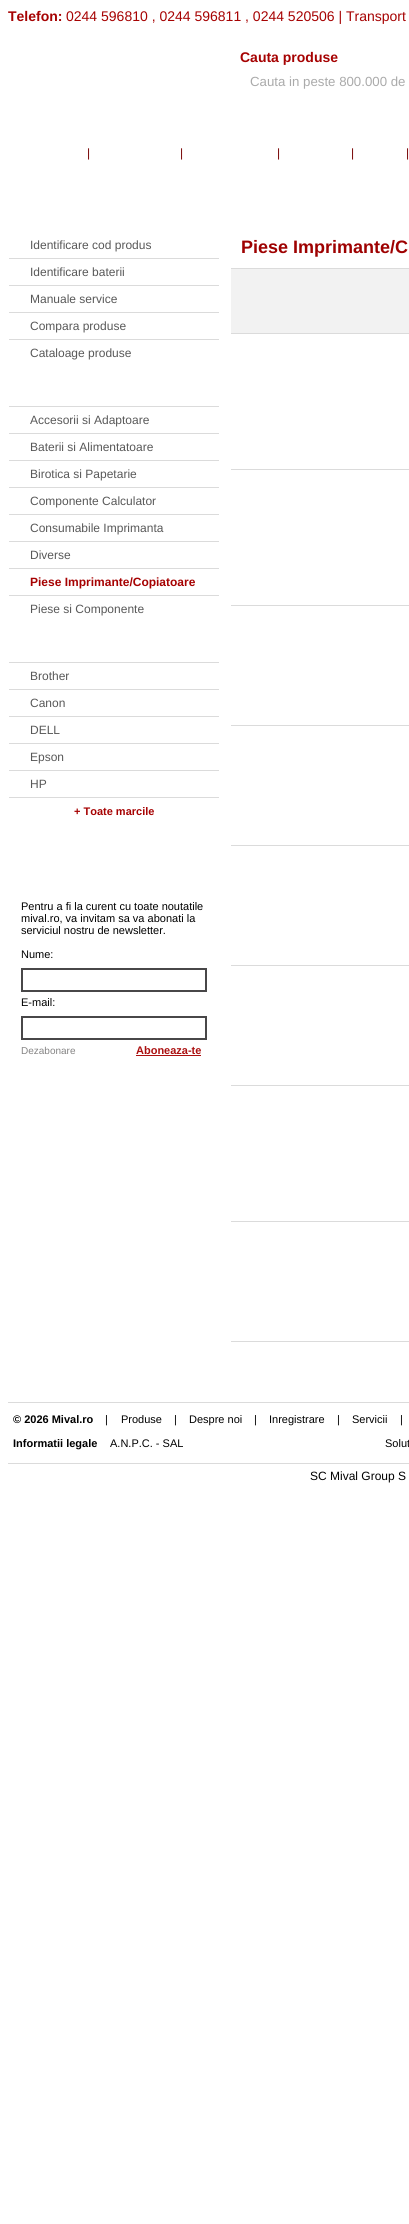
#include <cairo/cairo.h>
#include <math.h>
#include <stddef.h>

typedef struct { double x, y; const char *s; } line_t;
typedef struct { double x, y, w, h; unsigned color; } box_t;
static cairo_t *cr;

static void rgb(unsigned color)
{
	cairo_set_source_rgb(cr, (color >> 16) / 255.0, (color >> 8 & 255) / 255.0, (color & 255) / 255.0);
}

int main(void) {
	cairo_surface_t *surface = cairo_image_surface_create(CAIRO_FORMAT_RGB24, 409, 2224);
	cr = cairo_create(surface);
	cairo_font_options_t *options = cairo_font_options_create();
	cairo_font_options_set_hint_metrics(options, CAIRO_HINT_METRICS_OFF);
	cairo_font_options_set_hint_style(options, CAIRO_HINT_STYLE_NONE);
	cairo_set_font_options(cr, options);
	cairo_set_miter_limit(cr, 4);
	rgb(0xffffff);
	cairo_paint(cr);
	{
		static const box_t items[] = {
			{9, 258, 210, 1, 0xdbdbdb},
			{9, 285, 210, 1, 0xdbdbdb},
			{9, 312, 210, 1, 0xdbdbdb},
			{9, 339, 210, 1, 0xdbdbdb},
			{9, 406, 210, 1, 0xdbdbdb},
			{9, 433, 210, 1, 0xdbdbdb},
			{9, 460, 210, 1, 0xdbdbdb},
			{9, 487, 210, 1, 0xdbdbdb},
			{9, 514, 210, 1, 0xdbdbdb},
			{9, 541, 210, 1, 0xdbdbdb},
			{9, 568, 210, 1, 0xdbdbdb},
			{9, 595, 210, 1, 0xdbdbdb},
			{9, 662, 210, 1, 0xdbdbdb},
			{9, 689, 210, 1, 0xdbdbdb},
			{9, 716, 210, 1, 0xdbdbdb},
			{9, 743, 210, 1, 0xdbdbdb},
			{9, 770, 210, 1, 0xdbdbdb},
			{9, 797, 210, 1, 0xdbdbdb},
		};
		for (size_t i = 0; i < sizeof items / sizeof *items; i++) {
			rgb(items[i].color);
			cairo_rectangle(cr, items[i].x, items[i].y, items[i].w, items[i].h);
			cairo_fill(cr);
		}
	}
	cairo_rectangle(cr, 22, 969, 184, 22);
	rgb(0x484748);
	cairo_stroke(cr);
	cairo_rectangle(cr, 22, 1017, 184, 22);
	cairo_stroke(cr);
	{
		static const box_t items[] = {
			{136, 1055, 65, 1, 0xab1010},
			{231, 269, 178, 64, 0xf2f2f2},
			{231, 268, 178, 1, 0xdbdbdb},
			{231, 333, 178, 1, 0xdbdbdb},
			{231, 469, 178, 1, 0xdbdbdb},
			{231, 605, 178, 1, 0xdbdbdb},
			{231, 725, 178, 1, 0xdbdbdb},
			{231, 845, 178, 1, 0xdbdbdb},
			{231, 965, 178, 1, 0xdbdbdb},
			{231, 1085, 178, 1, 0xdbdbdb},
			{231, 1221, 178, 1, 0xdbdbdb},
			{231, 1341, 178, 1, 0xdbdbdb},
			{8, 1402, 401, 1, 0xdbdbdb},
			{8, 1463, 401, 1, 0xdbdbdb},
		};
		for (size_t i = 0; i < sizeof items / sizeof *items; i++) {
			rgb(items[i].color);
			cairo_rectangle(cr, items[i].x, items[i].y, items[i].w, items[i].h);
			cairo_fill(cr);
		}
	}
	cairo_select_font_face(cr, "Liberation Sans", CAIRO_FONT_SLANT_NORMAL, CAIRO_FONT_WEIGHT_BOLD);
	cairo_set_font_size(cr, 14);
	rgb(0xa60202);
	cairo_move_to(cr, 8, 21);
	cairo_show_text(cr, "Telefon:");
	cairo_select_font_face(cr, "Liberation Sans", CAIRO_FONT_SLANT_NORMAL, CAIRO_FONT_WEIGHT_NORMAL);
	cairo_move_to(cr, 66, 21);
	cairo_show_text(cr, "0244 596810 , 0244 596811 , 0244 520506 | Transport");
	cairo_select_font_face(cr, "Liberation Sans", CAIRO_FONT_SLANT_NORMAL, CAIRO_FONT_WEIGHT_BOLD);
	cairo_move_to(cr, 240, 62);
	cairo_show_text(cr, "Cauta produse");
	cairo_select_font_face(cr, "Liberation Sans", CAIRO_FONT_SLANT_NORMAL, CAIRO_FONT_WEIGHT_NORMAL);
	cairo_set_font_size(cr, 13.25);
	rgb(0xaaaaaa);
	cairo_move_to(cr, 250, 86);
	cairo_show_text(cr, "Cauta in peste 800.000 de");
	cairo_set_font_size(cr, 12);
	rgb(0x750000);
	{
		static const line_t items[] = {
			{87, 157, "|"},
			{180, 157, "|"},
			{277, 157, "|"},
			{351, 157, "|"},
			{406, 157, "|"},
		};
		for (size_t i = 0; i < sizeof items / sizeof *items; i++) {
			cairo_move_to(cr, items[i].x, items[i].y);
			cairo_show_text(cr, items[i].s);
		}
	}
	rgb(0x585858);
	{
		static const line_t items[] = {
			{30, 249, "Identificare cod produs"},
			{30, 276, "Identificare baterii"},
			{30, 303, "Manuale service"},
			{30, 330, "Compara produse"},
			{30, 357, "Cataloage produse"},
			{30, 424, "Accesorii si Adaptoare"},
			{30, 451, "Baterii si Alimentatoare"},
			{30, 478, "Birotica si Papetarie"},
			{30, 505, "Componente Calculator"},
			{30, 532, "Consumabile Imprimanta"},
			{30, 559, "Diverse"},
		};
		for (size_t i = 0; i < sizeof items / sizeof *items; i++) {
			cairo_move_to(cr, items[i].x, items[i].y);
			cairo_show_text(cr, items[i].s);
		}
	}
	cairo_select_font_face(cr, "Liberation Sans", CAIRO_FONT_SLANT_NORMAL, CAIRO_FONT_WEIGHT_BOLD);
	rgb(0xa60202);
	cairo_move_to(cr, 30, 586);
	cairo_show_text(cr, "Piese Imprimante/Copiatoare");
	cairo_select_font_face(cr, "Liberation Sans", CAIRO_FONT_SLANT_NORMAL, CAIRO_FONT_WEIGHT_NORMAL);
	rgb(0x585858);
	{
		static const line_t items[] = {
			{30, 613, "Piese si Componente"},
			{30, 680, "Brother"},
			{30, 707, "Canon"},
			{30, 734, "DELL"},
			{30, 761, "Epson"},
			{30, 788, "HP"},
		};
		for (size_t i = 0; i < sizeof items / sizeof *items; i++) {
			cairo_move_to(cr, items[i].x, items[i].y);
			cairo_show_text(cr, items[i].s);
		}
	}
	cairo_select_font_face(cr, "Liberation Sans", CAIRO_FONT_SLANT_NORMAL, CAIRO_FONT_WEIGHT_BOLD);
	cairo_set_font_size(cr, 11);
	rgb(0xa60202);
	cairo_move_to(cr, 74, 815);
	cairo_show_text(cr, "+ Toate marcile");
	cairo_select_font_face(cr, "Liberation Sans", CAIRO_FONT_SLANT_NORMAL, CAIRO_FONT_WEIGHT_NORMAL);
	rgb(0x000000);
	{
		static const line_t items[] = {
			{21, 910, "Pentru a fi la curent cu toate noutatile"},
			{21, 922, "mival.ro, va invitam sa va abonati la"},
			{21, 934, "serviciul nostru de newsletter."},
			{21, 958, "Nume:"},
			{21, 1006, "E-mail:"},
		};
		for (size_t i = 0; i < sizeof items / sizeof *items; i++) {
			cairo_move_to(cr, items[i].x, items[i].y);
			cairo_show_text(cr, items[i].s);
		}
	}
	cairo_set_font_size(cr, 10);
	rgb(0x858484);
	cairo_move_to(cr, 21, 1054);
	cairo_show_text(cr, "Dezabonare");
	cairo_select_font_face(cr, "Liberation Sans", CAIRO_FONT_SLANT_NORMAL, CAIRO_FONT_WEIGHT_BOLD);
	cairo_set_font_size(cr, 11);
	rgb(0xab1010);
	cairo_move_to(cr, 136, 1054);
	cairo_show_text(cr, "Aboneaza-te");
	cairo_set_font_size(cr, 18);
	rgb(0x9e0101);
	cairo_move_to(cr, 241, 253);
	cairo_show_text(cr, "Piese Imprimante/C");
	cairo_set_font_size(cr, 11);
	rgb(0x000000);
	cairo_move_to(cr, 13, 1423);
	cairo_show_text(cr, "© 2026 Mival.ro");
	cairo_select_font_face(cr, "Liberation Sans", CAIRO_FONT_SLANT_NORMAL, CAIRO_FONT_WEIGHT_NORMAL);
	{
		static const line_t items[] = {
			{105, 1423, "|"},
			{121, 1423, "Produse"},
			{174, 1423, "|"},
			{189, 1423, "Despre noi"},
			{254, 1423, "|"},
			{269, 1423, "Inregistrare"},
			{337, 1423, "|"},
			{352, 1423, "Servicii"},
			{400, 1423, "|"},
		};
		for (size_t i = 0; i < sizeof items / sizeof *items; i++) {
			cairo_move_to(cr, items[i].x, items[i].y);
			cairo_show_text(cr, items[i].s);
		}
	}
	cairo_select_font_face(cr, "Liberation Sans", CAIRO_FONT_SLANT_NORMAL, CAIRO_FONT_WEIGHT_BOLD);
	cairo_move_to(cr, 13, 1447);
	cairo_show_text(cr, "Informatii legale");
	cairo_select_font_face(cr, "Liberation Sans", CAIRO_FONT_SLANT_NORMAL, CAIRO_FONT_WEIGHT_NORMAL);
	cairo_move_to(cr, 110, 1447);
	cairo_show_text(cr, "A.N.P.C. - SAL");
	cairo_move_to(cr, 385, 1447);
	cairo_show_text(cr, "Solut");
	cairo_set_font_size(cr, 12);
	cairo_move_to(cr, 310, 1480);
	cairo_show_text(cr, "SC Mival Group S");
	cairo_surface_write_to_png(surface, "page.png");
	cairo_font_options_destroy(options);
	cairo_destroy(cr);
	cairo_surface_destroy(surface);
	return 0;
}
